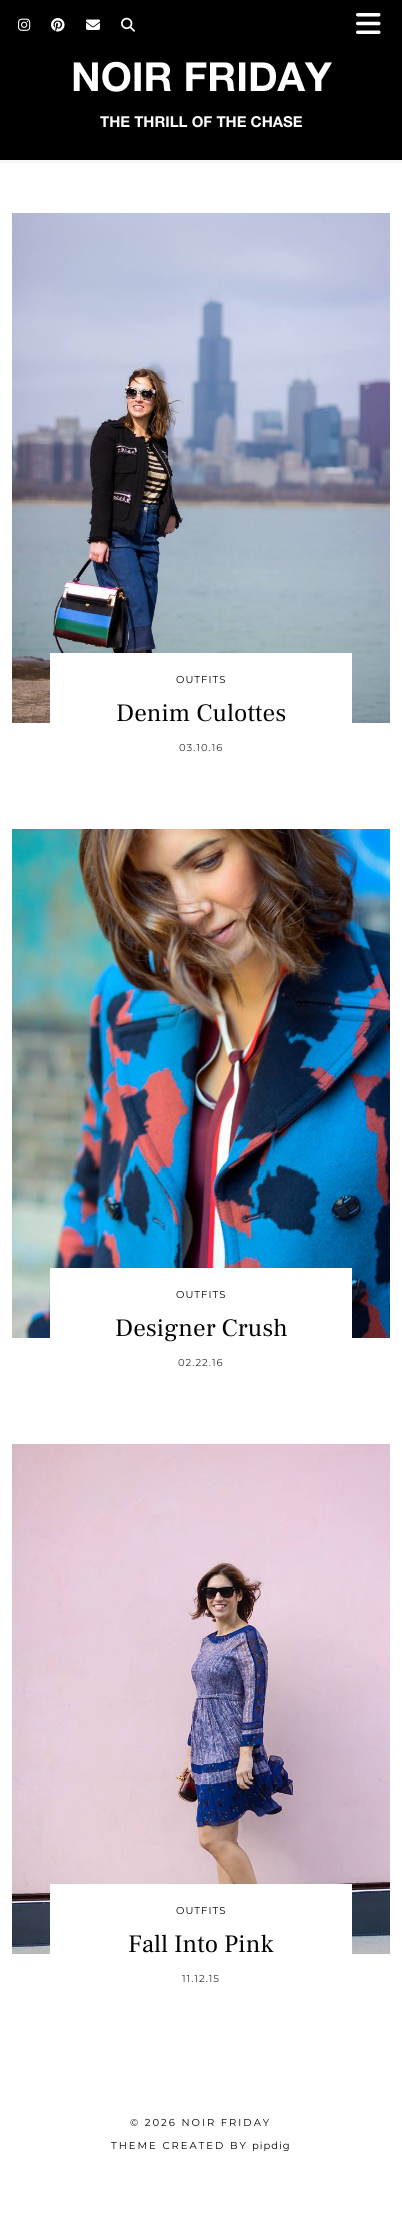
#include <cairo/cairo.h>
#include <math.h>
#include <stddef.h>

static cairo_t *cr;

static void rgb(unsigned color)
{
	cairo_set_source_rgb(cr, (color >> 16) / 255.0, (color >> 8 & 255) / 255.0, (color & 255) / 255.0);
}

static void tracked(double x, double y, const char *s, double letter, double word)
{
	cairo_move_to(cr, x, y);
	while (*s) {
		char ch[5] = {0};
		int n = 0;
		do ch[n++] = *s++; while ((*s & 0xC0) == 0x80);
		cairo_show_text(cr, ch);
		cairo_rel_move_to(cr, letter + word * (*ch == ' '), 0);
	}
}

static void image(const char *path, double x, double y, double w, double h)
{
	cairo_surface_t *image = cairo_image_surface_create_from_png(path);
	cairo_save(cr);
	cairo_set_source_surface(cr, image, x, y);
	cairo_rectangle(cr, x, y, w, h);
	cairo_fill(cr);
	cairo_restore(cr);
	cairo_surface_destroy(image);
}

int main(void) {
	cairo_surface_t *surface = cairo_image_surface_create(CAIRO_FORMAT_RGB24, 402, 2222);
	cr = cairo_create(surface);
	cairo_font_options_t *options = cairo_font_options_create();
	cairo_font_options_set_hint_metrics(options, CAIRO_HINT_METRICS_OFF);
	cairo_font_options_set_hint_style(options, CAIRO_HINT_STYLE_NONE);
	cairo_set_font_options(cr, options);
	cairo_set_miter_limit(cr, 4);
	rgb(0xffffff);
	cairo_paint(cr);
	rgb(0x000000);
	cairo_rectangle(cr, 0, 0, 402, 160);
	cairo_fill(cr);
	image("img/1.png", 18, 18, 13, 13);
	image("img/2.png", 51, 18, 14, 14);
	image("img/3.png", 86, 19, 14, 11);
	image("img/4.png", 121, 17, 14, 15);
	image("img/5.png", 356, 13, 25, 21);
	rgb(0xf5f5f5);
	cairo_rectangle(cr, 0, 160, 402, 3);
	cairo_fill(cr);
	image("img/6.png", 12, 213, 378, 510);
	rgb(0xffffff);
	cairo_rectangle(cr, 50, 653, 302, 70);
	cairo_fill(cr);
	image("img/7.png", 12, 829, 378, 509);
	cairo_rectangle(cr, 50, 1268, 302, 70);
	cairo_fill(cr);
	image("img/8.png", 12, 1444, 378, 510);
	cairo_rectangle(cr, 50, 1884, 302, 70);
	cairo_fill(cr);
	cairo_select_font_face(cr, "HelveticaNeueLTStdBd", CAIRO_FONT_SLANT_NORMAL, CAIRO_FONT_WEIGHT_BOLD);
	cairo_set_font_size(cr, 40);
	cairo_move_to(cr, 71, 91);
	cairo_show_text(cr, "NOIR FRIDAY");
	cairo_set_font_size(cr, 15);
	cairo_move_to(cr, 100, 127);
	cairo_show_text(cr, "THE THRILL OF THE CHASE");
	cairo_select_font_face(cr, "Montserrat Thin", CAIRO_FONT_SLANT_NORMAL, CAIRO_FONT_WEIGHT_NORMAL);
	cairo_set_font_size(cr, 10);
	rgb(0x000000);
	tracked(176, 683, "OUTFITS", 1, 0);
	cairo_select_font_face(cr, "Frank Ruhl Libre", CAIRO_FONT_SLANT_NORMAL, CAIRO_FONT_WEIGHT_NORMAL);
	cairo_set_font_size(cr, 25);
	cairo_move_to(cr, 116, 721);
	cairo_show_text(cr, "Denim Culottes");
	cairo_select_font_face(cr, "Montserrat Thin", CAIRO_FONT_SLANT_NORMAL, CAIRO_FONT_WEIGHT_NORMAL);
	cairo_set_font_size(cr, 10);
	rgb(0x333333);
	tracked(179, 751, "03.10.16", 1, 0);
	rgb(0x000000);
	tracked(176, 1298, "OUTFITS", 1, 0);
	cairo_select_font_face(cr, "Frank Ruhl Libre", CAIRO_FONT_SLANT_NORMAL, CAIRO_FONT_WEIGHT_NORMAL);
	cairo_set_font_size(cr, 25);
	cairo_move_to(cr, 115, 1336);
	cairo_show_text(cr, "Designer Crush");
	cairo_select_font_face(cr, "Montserrat Thin", CAIRO_FONT_SLANT_NORMAL, CAIRO_FONT_WEIGHT_NORMAL);
	cairo_set_font_size(cr, 10);
	rgb(0x333333);
	tracked(178, 1366, "02.22.16", 1, 0);
	rgb(0x000000);
	tracked(176, 1914, "OUTFITS", 1, 0);
	cairo_select_font_face(cr, "Frank Ruhl Libre", CAIRO_FONT_SLANT_NORMAL, CAIRO_FONT_WEIGHT_NORMAL);
	cairo_set_font_size(cr, 25);
	cairo_move_to(cr, 128, 1952);
	cairo_show_text(cr, "Fall Into Pink");
	cairo_select_font_face(cr, "Montserrat Thin", CAIRO_FONT_SLANT_NORMAL, CAIRO_FONT_WEIGHT_NORMAL);
	cairo_set_font_size(cr, 10);
	rgb(0x333333);
	tracked(182, 1982, "11.12.15", 1, 0);
	rgb(0x000000);
	tracked(130, 2126, "© 2026 NOIR FRIDAY", 2, 0);
	tracked(111, 2149, "THEME CREATED BY", 2, 0);
	tracked(252, 2149, "pipdig", 1, 0);
	cairo_surface_write_to_png(surface, "page.png");
	cairo_font_options_destroy(options);
	cairo_destroy(cr);
	cairo_surface_destroy(surface);
	return 0;
}
